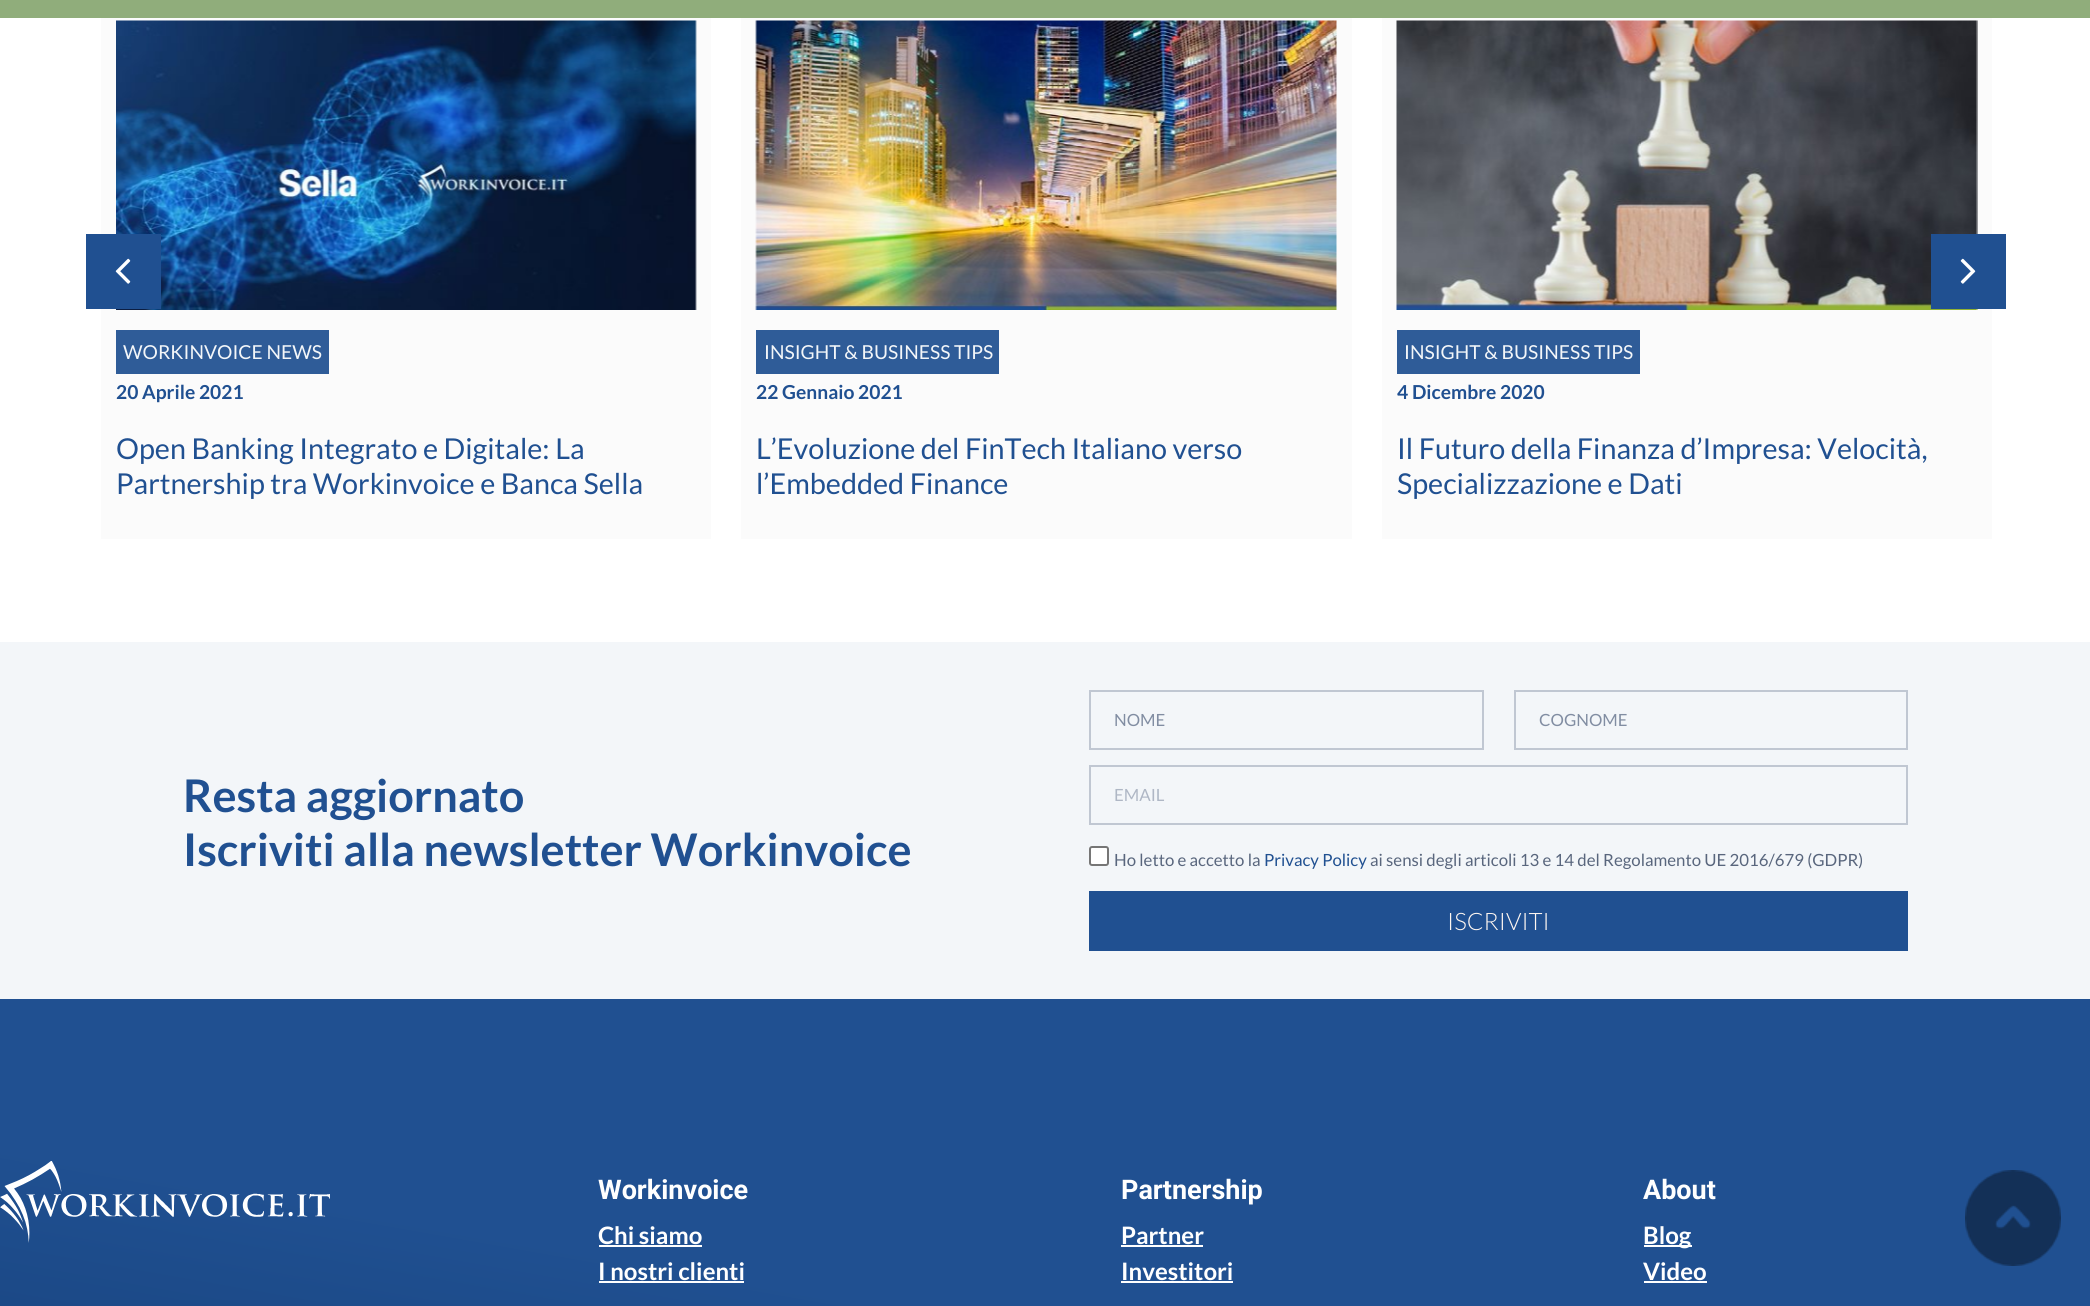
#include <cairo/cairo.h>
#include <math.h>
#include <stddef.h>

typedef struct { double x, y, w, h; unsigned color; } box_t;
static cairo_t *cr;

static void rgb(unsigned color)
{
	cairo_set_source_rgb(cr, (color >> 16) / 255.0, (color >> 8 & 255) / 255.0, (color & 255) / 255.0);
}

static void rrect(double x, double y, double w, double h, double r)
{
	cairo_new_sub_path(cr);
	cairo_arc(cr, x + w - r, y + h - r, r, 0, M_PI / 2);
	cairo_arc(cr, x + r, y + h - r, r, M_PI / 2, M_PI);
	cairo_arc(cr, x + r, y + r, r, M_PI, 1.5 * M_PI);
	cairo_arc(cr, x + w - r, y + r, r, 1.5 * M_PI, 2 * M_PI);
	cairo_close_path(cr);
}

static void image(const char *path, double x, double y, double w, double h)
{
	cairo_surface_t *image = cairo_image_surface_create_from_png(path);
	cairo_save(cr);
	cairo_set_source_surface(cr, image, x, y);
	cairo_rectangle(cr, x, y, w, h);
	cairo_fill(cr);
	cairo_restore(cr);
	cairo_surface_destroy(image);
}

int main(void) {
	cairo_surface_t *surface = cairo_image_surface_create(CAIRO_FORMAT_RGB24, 2090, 1306);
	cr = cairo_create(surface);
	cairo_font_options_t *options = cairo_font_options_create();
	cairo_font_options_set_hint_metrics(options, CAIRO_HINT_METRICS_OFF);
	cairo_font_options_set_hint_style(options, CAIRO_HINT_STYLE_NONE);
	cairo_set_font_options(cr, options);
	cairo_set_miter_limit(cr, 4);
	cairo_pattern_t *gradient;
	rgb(0xffffff);
	cairo_paint(cr);
	rgb(0x90ad7b);
	cairo_rectangle(cr, 0, 0, 2090, 18);
	cairo_fill(cr);
	rgb(0xfbfbfb);
	cairo_rectangle(cr, 101, 18, 610, 521);
	cairo_fill(cr);
	image("img/3.png", 116, 20, 581, 290);
	rgb(0x205091);
	cairo_rectangle(cr, 86, 234, 75, 75);
	cairo_fill(cr);
	image("img/1.png", 115, 258, 16, 26);
	rgb(0xfbfbfb);
	cairo_rectangle(cr, 1382, 18, 610, 521);
	cairo_fill(cr);
	image("img/5.png", 1396, 20, 582, 290);
	rgb(0x205091);
	cairo_rectangle(cr, 1931, 234, 75, 75);
	cairo_fill(cr);
	image("img/2.png", 1960, 258, 16, 26);
	rgb(0x2f5c98);
	cairo_rectangle(cr, 116, 330, 213, 44);
	cairo_fill(cr);
	rgb(0xfbfbfb);
	cairo_rectangle(cr, 741, 18, 611, 521);
	cairo_fill(cr);
	image("img/4.png", 755, 20, 582, 290);
	{
		static const box_t items[] = {
			{756, 330, 243, 44, 0x2f5c98},
			{1397, 330, 243, 44, 0x2f5c98},
			{0, 642, 2090, 357, 0xf3f6f9},
		};
		for (size_t i = 0; i < sizeof items / sizeof *items; i++) {
			rgb(items[i].color);
			cairo_rectangle(cr, items[i].x, items[i].y, items[i].w, items[i].h);
			cairo_fill(cr);
		}
	}
	cairo_rectangle(cr, 1090, 691, 393, 58);
	rgb(0xc0c7d2);
	cairo_stroke(cr);
	cairo_rectangle(cr, 1515, 691, 392, 58);
	cairo_stroke(cr);
	cairo_rectangle(cr, 1090, 766, 817, 58);
	cairo_stroke(cr);
	rgb(0xffffff);
	rrect(1090, 847, 18, 18, 2);
	cairo_fill_preserve(cr);
	rgb(0x767676);
	cairo_stroke(cr);
	rgb(0x205091);
	cairo_rectangle(cr, 1089, 891, 819, 60);
	cairo_fill(cr);
	gradient = cairo_pattern_create_linear(1169, 788, 922, 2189);
	cairo_pattern_add_color_stop_rgba(gradient, 0.39, 0.125, 0.314, 0.569, 1);
	cairo_pattern_add_color_stop_rgba(gradient, 1, 0.024, 0.157, 0.341, 1);
	cairo_set_source(cr, gradient);
	cairo_pattern_destroy(gradient);
	cairo_rectangle(cr, 0, 999, 2090, 307);
	cairo_fill(cr);
	image("img/6.png", 0, 1161, 330, 82);
	{
		static const box_t items[] = {
			{599, 1245, 103, 2, 0xffffff},
			{599, 1281, 145, 2, 0xffffff},
			{1121, 1245, 82, 2, 0xffffff},
			{1121, 1281, 112, 2, 0xffffff},
			{1644, 1245, 48, 2, 0xffffff},
			{1644, 1281, 63, 2, 0xffffff},
		};
		for (size_t i = 0; i < sizeof items / sizeof *items; i++) {
			rgb(items[i].color);
			cairo_rectangle(cr, items[i].x, items[i].y, items[i].w, items[i].h);
			cairo_fill(cr);
		}
	}
	image("img/7.png", 1965, 1170, 96, 96);
	cairo_select_font_face(cr, "Lato", CAIRO_FONT_SLANT_NORMAL, CAIRO_FONT_WEIGHT_NORMAL);
	cairo_set_font_size(cr, 19.25);
	rgb(0xf3f6f9);
	cairo_move_to(cr, 123, 359);
	cairo_show_text(cr, "WORKINVOICE NEWS");
	cairo_select_font_face(cr, "Lato", CAIRO_FONT_SLANT_NORMAL, CAIRO_FONT_WEIGHT_BOLD);
	rgb(0x205091);
	cairo_move_to(cr, 116, 399);
	cairo_show_text(cr, "20 Aprile 2021");
	cairo_select_font_face(cr, "Lato", CAIRO_FONT_SLANT_NORMAL, CAIRO_FONT_WEIGHT_NORMAL);
	cairo_set_font_size(cr, 28.75);
	cairo_move_to(cr, 116, 459);
	cairo_show_text(cr, "Open Banking Integrato e Digitale: La");
	cairo_move_to(cr, 116, 494);
	cairo_show_text(cr, "Partnership tra Workinvoice e Banca Sella");
	cairo_set_font_size(cr, 19.25);
	rgb(0xf3f6f9);
	cairo_move_to(cr, 764, 359);
	cairo_show_text(cr, "INSIGHT & BUSINESS TIPS");
	cairo_select_font_face(cr, "Lato", CAIRO_FONT_SLANT_NORMAL, CAIRO_FONT_WEIGHT_BOLD);
	rgb(0x205091);
	cairo_move_to(cr, 756, 399);
	cairo_show_text(cr, "22 Gennaio 2021");
	cairo_select_font_face(cr, "Lato", CAIRO_FONT_SLANT_NORMAL, CAIRO_FONT_WEIGHT_NORMAL);
	cairo_set_font_size(cr, 28.75);
	cairo_move_to(cr, 756, 459);
	cairo_show_text(cr, "L’Evoluzione del FinTech Italiano verso");
	cairo_move_to(cr, 756, 494);
	cairo_show_text(cr, "l’Embedded Finance");
	cairo_set_font_size(cr, 19.25);
	rgb(0xf3f6f9);
	cairo_move_to(cr, 1404, 359);
	cairo_show_text(cr, "INSIGHT & BUSINESS TIPS");
	cairo_select_font_face(cr, "Lato", CAIRO_FONT_SLANT_NORMAL, CAIRO_FONT_WEIGHT_BOLD);
	rgb(0x205091);
	cairo_move_to(cr, 1397, 399);
	cairo_show_text(cr, "4 Dicembre 2020");
	cairo_select_font_face(cr, "Lato", CAIRO_FONT_SLANT_NORMAL, CAIRO_FONT_WEIGHT_NORMAL);
	cairo_set_font_size(cr, 28.75);
	cairo_move_to(cr, 1397, 459);
	cairo_show_text(cr, "Il Futuro della Finanza d’Impresa: Velocità,");
	cairo_move_to(cr, 1397, 494);
	cairo_show_text(cr, "Specializzazione e Dati");
	cairo_select_font_face(cr, "Lato", CAIRO_FONT_SLANT_NORMAL, CAIRO_FONT_WEIGHT_BOLD);
	cairo_set_font_size(cr, 45);
	cairo_move_to(cr, 183, 812);
	cairo_show_text(cr, "Resta aggiornato");
	cairo_move_to(cr, 183, 866);
	cairo_show_text(cr, "Iscriviti alla newsletter Workinvoice");
	cairo_select_font_face(cr, "Lato", CAIRO_FONT_SLANT_NORMAL, CAIRO_FONT_WEIGHT_NORMAL);
	cairo_set_font_size(cr, 16.8);
	rgb(0x818da2);
	cairo_move_to(cr, 1114, 726);
	cairo_show_text(cr, "NOME");
	cairo_move_to(cr, 1539, 726);
	cairo_show_text(cr, "COGNOME");
	rgb(0xafb7c5);
	cairo_move_to(cr, 1114, 801);
	cairo_show_text(cr, "EMAIL");
	rgb(0x59667d);
	cairo_move_to(cr, 1114, 866);
	cairo_show_text(cr, "Ho letto e accetto la");
	rgb(0x205091);
	cairo_move_to(cr, 1264, 866);
	cairo_show_text(cr, "Privacy Policy");
	rgb(0x59667d);
	cairo_move_to(cr, 1370, 866);
	cairo_show_text(cr, "ai sensi degli articoli 13 e 14 del Regolamento UE 2016/679 (GDPR)");
	cairo_select_font_face(cr, "Lato Light", CAIRO_FONT_SLANT_NORMAL, CAIRO_FONT_WEIGHT_NORMAL);
	cairo_set_font_size(cr, 24);
	rgb(0xfff7f1);
	cairo_move_to(cr, 1447, 930);
	cairo_show_text(cr, "ISCRIVITI");
	cairo_select_font_face(cr, "Roboto", CAIRO_FONT_SLANT_NORMAL, CAIRO_FONT_WEIGHT_BOLD);
	cairo_set_font_size(cr, 27);
	rgb(0xffffff);
	cairo_move_to(cr, 598, 1199);
	cairo_show_text(cr, "Workinvoice");
	cairo_select_font_face(cr, "Lato", CAIRO_FONT_SLANT_NORMAL, CAIRO_FONT_WEIGHT_BOLD);
	cairo_set_font_size(cr, 24);
	cairo_move_to(cr, 598, 1244);
	cairo_show_text(cr, "Chi siamo");
	cairo_move_to(cr, 598, 1280);
	cairo_show_text(cr, "I nostri clienti");
	cairo_select_font_face(cr, "Roboto", CAIRO_FONT_SLANT_NORMAL, CAIRO_FONT_WEIGHT_BOLD);
	cairo_set_font_size(cr, 27);
	cairo_move_to(cr, 1121, 1199);
	cairo_show_text(cr, "Partnership");
	cairo_select_font_face(cr, "Lato", CAIRO_FONT_SLANT_NORMAL, CAIRO_FONT_WEIGHT_BOLD);
	cairo_set_font_size(cr, 24);
	cairo_move_to(cr, 1121, 1244);
	cairo_show_text(cr, "Partner");
	cairo_move_to(cr, 1121, 1280);
	cairo_show_text(cr, "Investitori");
	cairo_select_font_face(cr, "Roboto", CAIRO_FONT_SLANT_NORMAL, CAIRO_FONT_WEIGHT_BOLD);
	cairo_set_font_size(cr, 27);
	cairo_move_to(cr, 1643, 1199);
	cairo_show_text(cr, "About");
	cairo_select_font_face(cr, "Lato", CAIRO_FONT_SLANT_NORMAL, CAIRO_FONT_WEIGHT_BOLD);
	cairo_set_font_size(cr, 24);
	cairo_move_to(cr, 1643, 1244);
	cairo_show_text(cr, "Blog");
	cairo_move_to(cr, 1643, 1280);
	cairo_show_text(cr, "Video");
	cairo_surface_write_to_png(surface, "page.png");
	cairo_font_options_destroy(options);
	cairo_destroy(cr);
	cairo_surface_destroy(surface);
	return 0;
}
